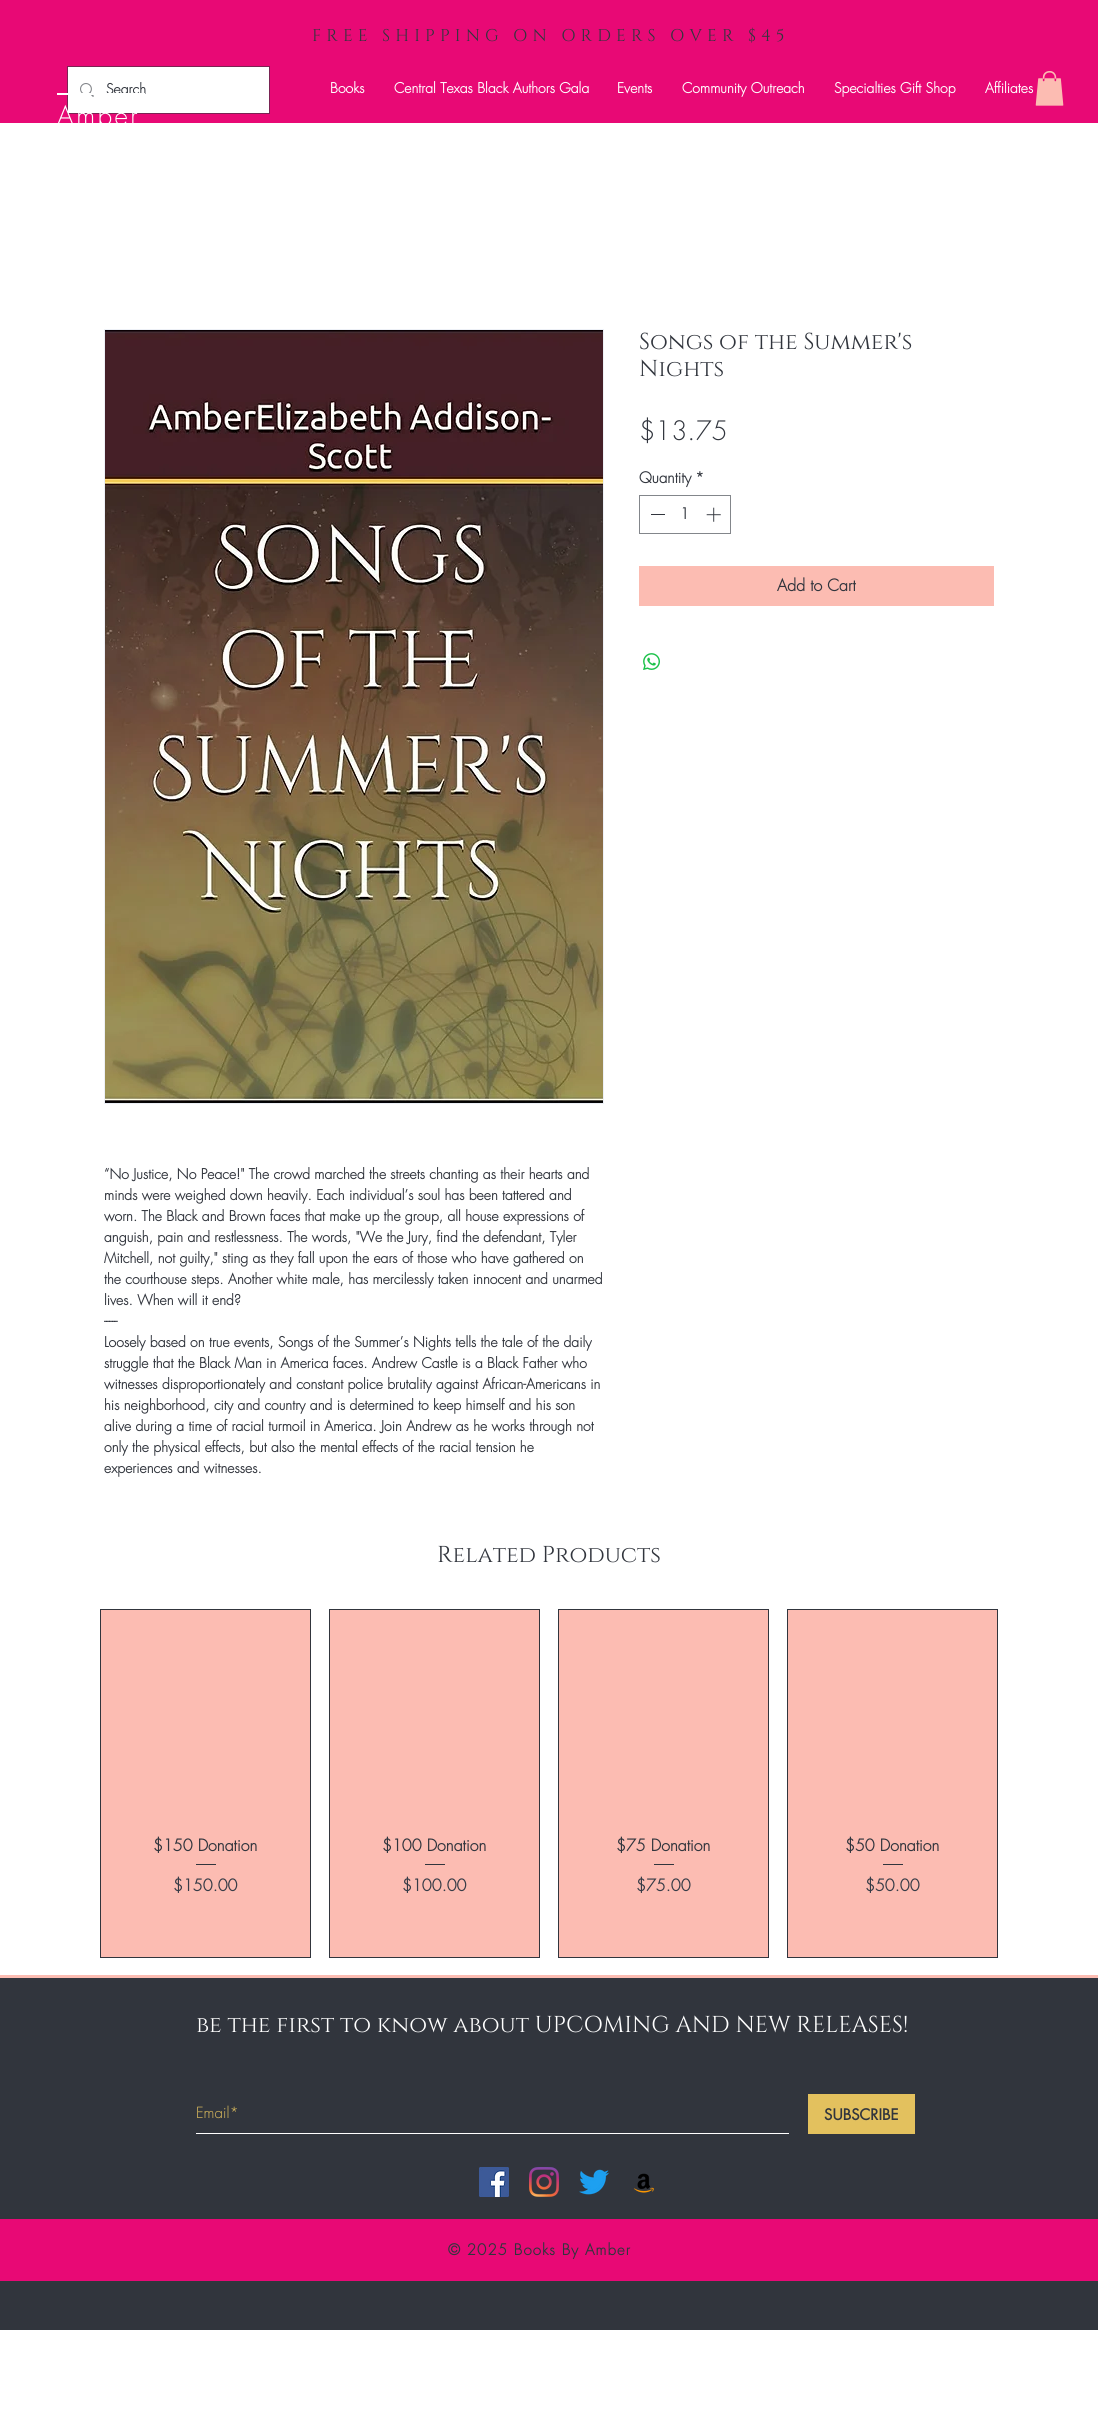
#include <cairo/cairo.h>
#include <math.h>
#include <stddef.h>

typedef struct { double x, y; const char *s; } line_t;
typedef struct { double x, y, w, h; unsigned color; } box_t;
static cairo_t *cr;

static void rgb(unsigned color)
{
	cairo_set_source_rgb(cr, (color >> 16) / 255.0, (color >> 8 & 255) / 255.0, (color & 255) / 255.0);
}

static void tracked(double x, double y, const char *s, double letter, double word)
{
	cairo_move_to(cr, x, y);
	while (*s) {
		char ch[5] = {0};
		int n = 0;
		do ch[n++] = *s++; while ((*s & 0xC0) == 0x80);
		cairo_show_text(cr, ch);
		cairo_rel_move_to(cr, letter + word * (*ch == ' '), 0);
	}
}

static void image(const char *path, double x, double y, double w, double h)
{
	cairo_surface_t *image = cairo_image_surface_create_from_png(path);
	cairo_save(cr);
	cairo_set_source_surface(cr, image, x, y);
	cairo_rectangle(cr, x, y, w, h);
	cairo_fill(cr);
	cairo_restore(cr);
	cairo_surface_destroy(image);
}

int main(void) {
	cairo_surface_t *surface = cairo_image_surface_create(CAIRO_FORMAT_RGB24, 1098, 2426);
	cr = cairo_create(surface);
	cairo_font_options_t *options = cairo_font_options_create();
	cairo_font_options_set_hint_metrics(options, CAIRO_HINT_METRICS_OFF);
	cairo_font_options_set_hint_style(options, CAIRO_HINT_STYLE_NONE);
	cairo_set_font_options(cr, options);
	cairo_set_miter_limit(cr, 4);
	rgb(0xffffff);
	cairo_paint(cr);
	rgb(0xe80975);
	cairo_rectangle(cr, 0, 0, 1098, 123);
	cairo_fill(cr);
	cairo_rectangle(cr, 67.5, 66.5, 202, 47);
	rgb(0x7a2353);
	cairo_set_line_width(cr, 1);
	cairo_stroke(cr);
	rgb(0xffffff);
	cairo_rectangle(cr, 68, 67, 201, 46);
	cairo_fill(cr);
	image("img/1.png", 80, 83, 14, 14);
	image("img/2.png", 1035, 71, 29, 35);
	cairo_rectangle(cr, 639.5, 495.5, 91, 38);
	rgb(0x83868b);
	cairo_stroke(cr);
	rgb(0x31353d);
	cairo_rectangle(cr, 651, 514, 14, 1);
	cairo_fill(cr);
	image("img/3.png", 706, 507, 15, 15);
	rgb(0xfcbcb2);
	cairo_rectangle(cr, 639, 566, 355, 40);
	cairo_fill(cr);
	image("img/4.png", 643, 653, 17, 17);
	cairo_rectangle(cr, 104.5, 329.5, 499, 774);
	rgb(0xedf0f6);
	cairo_stroke(cr);
	image("img/5.png", 105, 330, 498, 773);
	rgb(0xfcbcb2);
	cairo_rectangle(cr, 100.5, 1609.5, 210, 348);
	cairo_fill_preserve(cr);
	rgb(0x31353d);
	cairo_stroke(cr);
	cairo_rectangle(cr, 196, 1864, 20, 1);
	cairo_fill(cr);
	rgb(0xfcbcb2);
	cairo_rectangle(cr, 329.5, 1609.5, 210, 348);
	cairo_fill_preserve(cr);
	rgb(0x31353d);
	cairo_stroke(cr);
	cairo_rectangle(cr, 425, 1864, 20, 1);
	cairo_fill(cr);
	rgb(0xfcbcb2);
	cairo_rectangle(cr, 558.5, 1609.5, 210, 348);
	cairo_fill_preserve(cr);
	rgb(0x31353d);
	cairo_stroke(cr);
	cairo_rectangle(cr, 654, 1864, 20, 1);
	cairo_fill(cr);
	rgb(0xfcbcb2);
	cairo_rectangle(cr, 787.5, 1609.5, 210, 348);
	cairo_fill_preserve(cr);
	rgb(0x31353d);
	cairo_stroke(cr);
	{
		static const box_t items[] = {
			{883, 1864, 20, 1, 0x31353d},
			{0, 1978, 1098, 352, 0x31353d},
			{0, 1975, 1098, 3, 0xfcbcb2},
			{196, 2133, 593, 1, 0xffffff},
			{808, 2094, 107, 40, 0xe3c15e},
		};
		for (size_t i = 0; i < sizeof items / sizeof *items; i++) {
			rgb(items[i].color);
			cairo_rectangle(cr, items[i].x, items[i].y, items[i].w, items[i].h);
			cairo_fill(cr);
		}
	}
	image("img/6.png", 479, 2167, 30, 30);
	image("img/7.png", 529, 2167, 30, 30);
	image("img/8.png", 579, 2169, 30, 26);
	image("img/9.png", 633, 2173, 21, 20);
	rgb(0xe80975);
	cairo_rectangle(cr, 0, 2219, 1098, 62);
	cairo_fill(cr);
	cairo_select_font_face(cr, "Cinzel", CAIRO_FONT_SLANT_NORMAL, CAIRO_FONT_WEIGHT_NORMAL);
	cairo_set_font_size(cr, 17);
	rgb(0x31353d);
	tracked(312, 41, "FREE SHIPPING ON ORDERS OVER $45", 5.1, 0);
	cairo_select_font_face(cr, "futura", CAIRO_FONT_SLANT_NORMAL, CAIRO_FONT_WEIGHT_BOLD);
	cairo_set_font_size(cr, 14);
	cairo_move_to(cr, 106, 94);
	cairo_show_text(cr, "Search");
	rgb(0xffffff);
	{
		static const line_t items[] = {
			{330, 93, "Books"},
			{394, 93, "Central Texas Black Authors Gala"},
			{617, 93, "Events"},
			{682, 93, "Community Outreach"},
			{834, 93, "Specialties Gift Shop"},
			{985, 93, "Affiliates"},
		};
		for (size_t i = 0; i < sizeof items / sizeof *items; i++) {
			cairo_move_to(cr, items[i].x, items[i].y);
			cairo_show_text(cr, items[i].s);
		}
	}
	cairo_select_font_face(cr, "futura Light", CAIRO_FONT_SLANT_NORMAL, CAIRO_FONT_WEIGHT_NORMAL);
	cairo_set_font_size(cr, 26);
	tracked(57, 125, "Amber", 2.5, 0);
	cairo_rectangle(cr, 57, 93, 88, 2);
	cairo_fill(cr);
	cairo_select_font_face(cr, "Cinzel", CAIRO_FONT_SLANT_NORMAL, CAIRO_FONT_WEIGHT_NORMAL);
	cairo_set_font_size(cr, 23);
	rgb(0x31353d);
	cairo_move_to(cr, 639, 349);
	cairo_show_text(cr, "Songs of the Summer's");
	cairo_move_to(cr, 639, 376);
	cairo_show_text(cr, "Nights");
	cairo_select_font_face(cr, "futura Light", CAIRO_FONT_SLANT_NORMAL, CAIRO_FONT_WEIGHT_NORMAL);
	cairo_set_font_size(cr, 26);
	cairo_move_to(cr, 639, 440);
	cairo_show_text(cr, "$13.75");
	cairo_select_font_face(cr, "futura", CAIRO_FONT_SLANT_NORMAL, CAIRO_FONT_WEIGHT_BOLD);
	cairo_set_font_size(cr, 15);
	{
		static const line_t items[] = {
			{639, 483, "Quantity"},
			{695, 483, "*"},
			{680, 519, "1"},
		};
		for (size_t i = 0; i < sizeof items / sizeof *items; i++) {
			cairo_move_to(cr, items[i].x, items[i].y);
			cairo_show_text(cr, items[i].s);
		}
	}
	cairo_set_font_size(cr, 16);
	cairo_move_to(cr, 777, 591);
	cairo_show_text(cr, "Add to Cart");
	cairo_set_font_size(cr, 14);
	{
		static const line_t items[] = {
			{104, 1179, "“No Justice, No Peace!\" The crowd marched the streets chanting as their hearts and"},
			{104, 1200, "minds were weighed down heavily. Each individual’s soul has been tattered and"},
			{104, 1221, "worn. The Black and Brown faces that make up the group, all house expressions of"},
			{104, 1242, "anguish, pain and restlessness. The words, \"We the Jury, find the defendant, Tyler"},
			{104, 1263, "Mitchell, not guilty,\" sting as they fall upon the ears of those who have gathered on"},
			{104, 1284, "the courthouse steps. Another white male, has mercilessly taken innocent and unarmed"},
			{104, 1305, "lives. When will it end?"},
			{104, 1326, "-----"},
			{104, 1347, "Loosely based on true events, Songs of the Summer’s Nights tells the tale of the daily"},
			{104, 1368, "struggle that the Black Man in America faces. Andrew Castle is a Black Father who"},
			{104, 1389, "witnesses disproportionately and constant police brutality against African-Americans in"},
			{104, 1410, "his neighborhood, city and country and is determined to keep himself and his son"},
			{104, 1431, "alive during a time of racial turmoil in America. Join Andrew as he works through not"},
			{104, 1452, "only the physical effects, but also the mental effects of the racial tension he"},
			{104, 1473, "experiences and witnesses."},
		};
		for (size_t i = 0; i < sizeof items / sizeof *items; i++) {
			cairo_move_to(cr, items[i].x, items[i].y);
			cairo_show_text(cr, items[i].s);
		}
	}
	cairo_select_font_face(cr, "Cinzel", CAIRO_FONT_SLANT_NORMAL, CAIRO_FONT_WEIGHT_NORMAL);
	cairo_set_font_size(cr, 23);
	cairo_move_to(cr, 437, 1562);
	cairo_show_text(cr, "Related Products");
	cairo_select_font_face(cr, "futura", CAIRO_FONT_SLANT_NORMAL, CAIRO_FONT_WEIGHT_BOLD);
	cairo_set_font_size(cr, 16);
	cairo_move_to(cr, 153, 1851);
	cairo_show_text(cr, "$150 Donation");
	rgb(0x373c47);
	cairo_move_to(cr, 173, 1891);
	cairo_show_text(cr, "$150.00");
	rgb(0x31353d);
	cairo_move_to(cr, 382, 1851);
	cairo_show_text(cr, "$100 Donation");
	rgb(0x373c47);
	cairo_move_to(cr, 402, 1891);
	cairo_show_text(cr, "$100.00");
	rgb(0x31353d);
	cairo_move_to(cr, 616, 1851);
	cairo_show_text(cr, "$75 Donation");
	rgb(0x373c47);
	cairo_move_to(cr, 636, 1891);
	cairo_show_text(cr, "$75.00");
	rgb(0x31353d);
	cairo_move_to(cr, 845, 1851);
	cairo_show_text(cr, "$50 Donation");
	rgb(0x373c47);
	cairo_move_to(cr, 865, 1891);
	cairo_show_text(cr, "$50.00");
	cairo_select_font_face(cr, "Cinzel", CAIRO_FONT_SLANT_NORMAL, CAIRO_FONT_WEIGHT_NORMAL);
	cairo_set_font_size(cr, 23);
	rgb(0xffffff);
	cairo_move_to(cr, 196, 2032);
	cairo_show_text(cr, "be the first to know about UPCOMING AND NEW RELEASES!");
	cairo_select_font_face(cr, "futura Light", CAIRO_FONT_SLANT_NORMAL, CAIRO_FONT_WEIGHT_NORMAL);
	cairo_set_font_size(cr, 15);
	rgb(0xe3c15e);
	cairo_move_to(cr, 196, 2118);
	cairo_show_text(cr, "Email*");
	cairo_select_font_face(cr, "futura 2", CAIRO_FONT_SLANT_NORMAL, CAIRO_FONT_WEIGHT_BOLD);
	rgb(0x31353d);
	cairo_move_to(cr, 824, 2120);
	cairo_show_text(cr, "SUBSCRIBE");
	cairo_select_font_face(cr, "futura", CAIRO_FONT_SLANT_NORMAL, CAIRO_FONT_WEIGHT_BOLD);
	tracked(448, 2255, "© 2025 Books By Amber", 1.05, 0);
	cairo_surface_write_to_png(surface, "page.png");
	cairo_font_options_destroy(options);
	cairo_destroy(cr);
	cairo_surface_destroy(surface);
	return 0;
}
